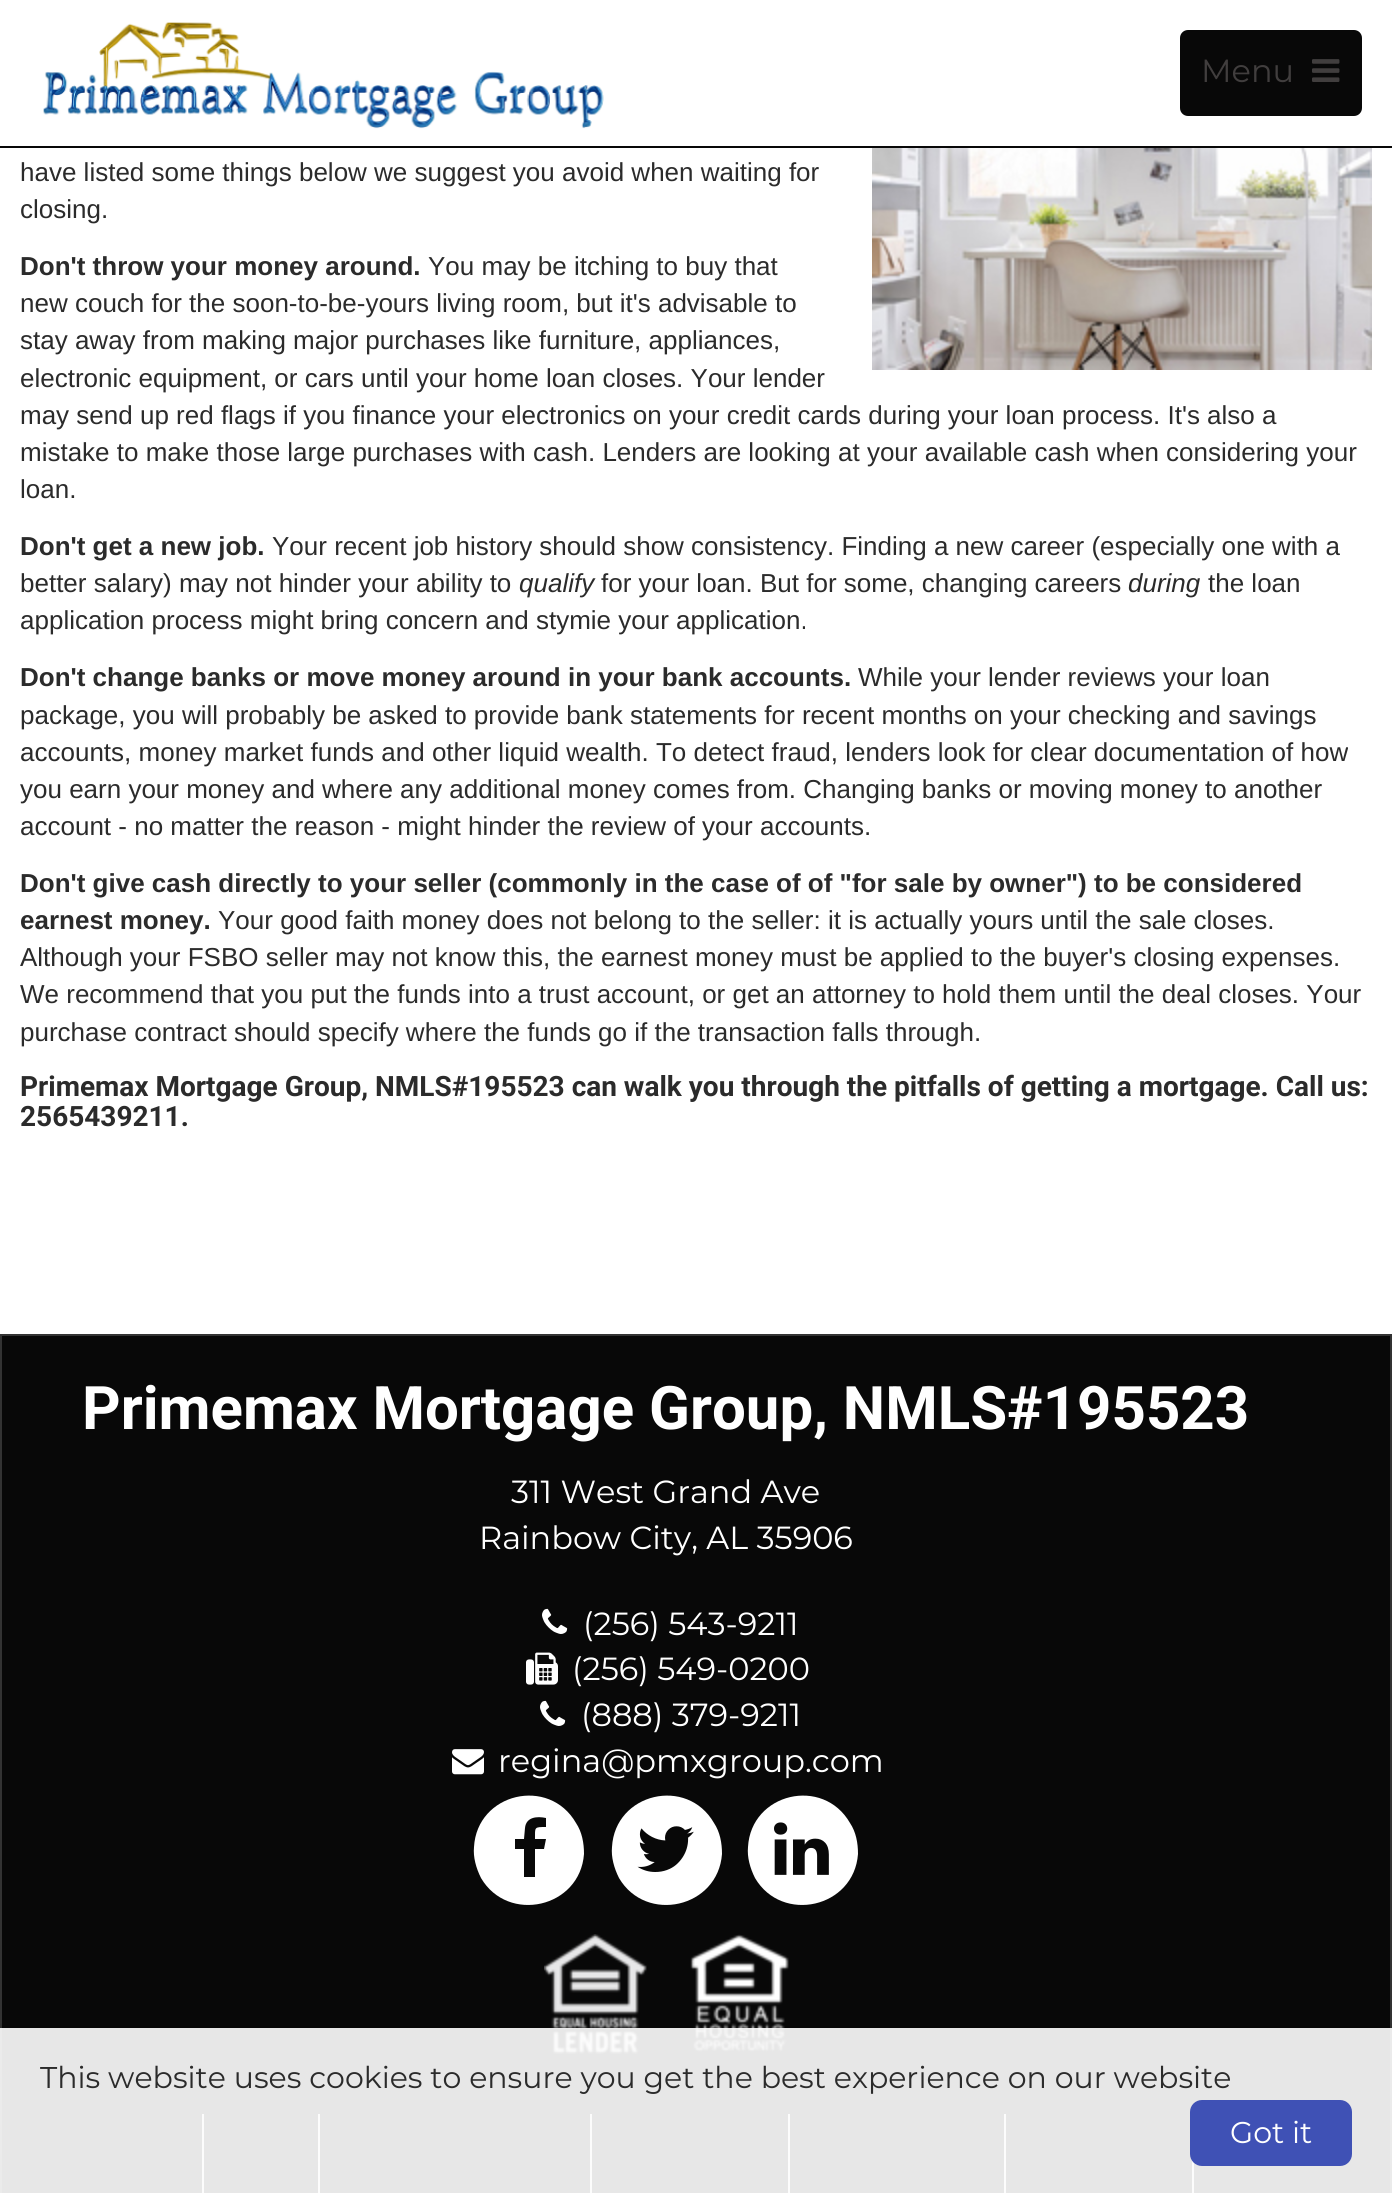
#include <cairo/cairo.h>
#include <math.h>
#include <stddef.h>

typedef struct { double x, y; const char *s; } line_t;
typedef struct { double x, y, w, h; unsigned color; } box_t;
static cairo_t *cr;

static void rgb(unsigned color)
{
	cairo_set_source_rgb(cr, (color >> 16) / 255.0, (color >> 8 & 255) / 255.0, (color & 255) / 255.0);
}

static void rrect(double x, double y, double w, double h, double r)
{
	cairo_new_sub_path(cr);
	cairo_arc(cr, x + w - r, y + h - r, r, 0, M_PI / 2);
	cairo_arc(cr, x + r, y + h - r, r, M_PI / 2, M_PI);
	cairo_arc(cr, x + r, y + r, r, M_PI, 1.5 * M_PI);
	cairo_arc(cr, x + w - r, y + r, r, 1.5 * M_PI, 2 * M_PI);
	cairo_close_path(cr);
}

static void soft_shadow(double x, double y, double w, double h, double r, double blur, double alpha)
{
	cairo_push_group_with_content(cr, CAIRO_CONTENT_ALPHA);
	cairo_set_operator(cr, CAIRO_OPERATOR_SOURCE);
	for (int i = 15; i >= -15 && fmin(w, h) + blur * i / 3 > 0; i -= 2) {
		double e = blur * i / 6;
		cairo_set_source_rgba(cr, 0, 0, 0, alpha * erfc((i - 1) / 8.5) / 2);
		rrect(x - e, y - e, w + 2 * e, h + 2 * e, fmax(0, fmin(r + e + blur * .6, fmin(w, h) / 2 + e)));
		cairo_fill(cr);
	}
	cairo_pattern_t *soft = cairo_pop_group(cr);
	cairo_mask(cr, soft);
	cairo_pattern_destroy(soft);
}

static void image(const char *path, double x, double y, double w, double h)
{
	cairo_surface_t *image = cairo_image_surface_create_from_png(path);
	cairo_save(cr);
	cairo_set_source_surface(cr, image, x, y);
	cairo_rectangle(cr, x, y, w, h);
	cairo_fill(cr);
	cairo_restore(cr);
	cairo_surface_destroy(image);
}

int main(void) {
	cairo_surface_t *surface = cairo_image_surface_create(CAIRO_FORMAT_RGB24, 1392, 2193);
	cr = cairo_create(surface);
	cairo_font_options_t *options = cairo_font_options_create();
	cairo_font_options_set_hint_metrics(options, CAIRO_HINT_METRICS_OFF);
	cairo_font_options_set_hint_style(options, CAIRO_HINT_STYLE_NONE);
	cairo_set_font_options(cr, options);
	cairo_set_miter_limit(cr, 4);
	rgb(0xffffff);
	cairo_paint(cr);
	rgb(0x080808);
	cairo_rectangle(cr, 0, 146, 1392, 2);
	cairo_fill(cr);
	image("img/1.png", 43, 22, 561, 107);
	rrect(1180, 30, 182, 86, 8);
	cairo_fill(cr);
	image("img/2.png", 1312, 59, 28, 23);
	image("img/3.png", 872, 148, 500, 222);
	cairo_rectangle(cr, 1, 1335, 1390, 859);
	cairo_fill_preserve(cr);
	rgb(0x333333);
	cairo_stroke(cr);
	image("img/4.png", 542, 1608, 26, 26);
	image("img/5.png", 526, 1652, 32, 33);
	image("img/4.png", 540, 1700, 26, 26);
	image("img/6.png", 452, 1749, 32, 26);
	rgb(0xffffff);
	cairo_new_path(cr);
	cairo_move_to(cr, 576, 1823);
	cairo_curve_to(cr, 582, 1832, 584, 1843, 584, 1854);
	cairo_curve_to(cr, 580, 1908, 508, 1924, 481, 1878);
	cairo_curve_to(cr, 476, 1868, 473, 1857, 474, 1847);
	cairo_curve_to(cr, 477, 1793, 549, 1776, 576, 1823);
	cairo_close_path(cr);
	cairo_fill(cr);
	rgb(0x080808);
	cairo_new_path(cr);
	cairo_move_to(cr, 546, 1818);
	cairo_line_to(cr, 546, 1827);
	cairo_curve_to(cr, 534, 1827, 535, 1827, 535, 1839);
	cairo_line_to(cr, 546, 1839);
	cairo_line_to(cr, 544, 1849);
	cairo_line_to(cr, 535, 1849);
	cairo_line_to(cr, 535, 1877);
	cairo_line_to(cr, 524, 1877);
	cairo_line_to(cr, 524, 1849);
	cairo_line_to(cr, 515, 1849);
	cairo_line_to(cr, 515, 1839);
	cairo_line_to(cr, 524, 1839);
	cairo_line_to(cr, 525, 1828);
	cairo_curve_to(cr, 526, 1817, 537, 1816, 546, 1818);
	cairo_close_path(cr);
	cairo_fill(cr);
	rgb(0xffffff);
	cairo_new_path(cr);
	cairo_move_to(cr, 714, 1823);
	cairo_curve_to(cr, 720, 1832, 722, 1843, 722, 1854);
	cairo_curve_to(cr, 718, 1908, 646, 1924, 619, 1878);
	cairo_curve_to(cr, 614, 1868, 611, 1857, 612, 1847);
	cairo_curve_to(cr, 615, 1793, 687, 1776, 714, 1823);
	cairo_close_path(cr);
	cairo_fill(cr);
	image("img/7.png", 637, 1826, 57, 46);
	cairo_new_path(cr);
	cairo_move_to(cr, 850, 1823);
	cairo_curve_to(cr, 856, 1832, 858, 1843, 858, 1854);
	cairo_curve_to(cr, 854, 1908, 782, 1924, 755, 1878);
	cairo_curve_to(cr, 750, 1868, 747, 1857, 748, 1847);
	cairo_curve_to(cr, 751, 1793, 823, 1776, 850, 1823);
	cairo_close_path(cr);
	cairo_fill(cr);
	image("img/8.png", 774, 1822, 55, 53);
	image("img/9.png", 544, 1934, 103, 120);
	image("img/10.png", 690, 1934, 99, 118);
	{
		static const box_t items[] = {
			{202, 2114, 2, 79, 0xdddddd},
			{318, 2114, 2, 79, 0xdddddd},
			{590, 2114, 2, 79, 0xdddddd},
			{788, 2114, 2, 79, 0xdddddd},
			{1004, 2114, 2, 79, 0xdddddd},
			{1192, 2160, 2, 33, 0xdddddd},
		};
		for (size_t i = 0; i < sizeof items / sizeof *items; i++) {
			rgb(items[i].color);
			cairo_rectangle(cr, items[i].x, items[i].y, items[i].w, items[i].h);
			cairo_fill(cr);
		}
	}
	cairo_save(cr);
	cairo_rectangle(cr, 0, 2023, 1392, 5);
	cairo_clip(cr);
	rgb(0x000000);
	soft_shadow(0, 2028, 1392, 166, 0, 4, 0.2);
	cairo_restore(cr);
	cairo_set_source_rgba(cr, 1, 1, 1, 0.9);
	cairo_rectangle(cr, 0, 2028, 1392, 165);
	cairo_fill(cr);
	rgb(0x3f51b5);
	rrect(1190, 2100, 162, 66, 12);
	cairo_fill(cr);
	cairo_select_font_face(cr, "Montserrat Thin", CAIRO_FONT_SLANT_NORMAL, CAIRO_FONT_WEIGHT_NORMAL);
	cairo_set_font_size(cr, 32);
	rgb(0x413e3e);
	cairo_move_to(cr, 1201, 82);
	cairo_show_text(cr, "Menu");
	cairo_select_font_face(cr, "Liberation Sans", CAIRO_FONT_SLANT_NORMAL, CAIRO_FONT_WEIGHT_NORMAL);
	cairo_set_font_size(cr, 26);
	rgb(0x2b2b2b);
	cairo_move_to(cr, 20, 181);
	cairo_show_text(cr, "have listed some things below we suggest you avoid when waiting for");
	cairo_move_to(cr, 20, 218);
	cairo_show_text(cr, "closing.");
	cairo_select_font_face(cr, "Liberation Sans", CAIRO_FONT_SLANT_NORMAL, CAIRO_FONT_WEIGHT_BOLD);
	cairo_move_to(cr, 20, 275);
	cairo_show_text(cr, "Don't throw your money around.");
	cairo_select_font_face(cr, "Liberation Sans", CAIRO_FONT_SLANT_NORMAL, CAIRO_FONT_WEIGHT_NORMAL);
	{
		static const line_t items[] = {
			{428, 275, "You may be itching to buy that"},
			{20, 312, "new couch for the soon-to-be-yours living room, but it's advisable to"},
			{20, 349, "stay away from making major purchases like furniture, appliances,"},
			{20, 387, "electronic equipment, or cars until your home loan closes. Your lender"},
			{20, 424, "may send up red flags if you finance your electronics on your credit cards during your loan process. It's also a"},
			{20, 461, "mistake to make those large purchases with cash. Lenders are looking at your available cash when considering your"},
			{20, 498, "loan."},
		};
		for (size_t i = 0; i < sizeof items / sizeof *items; i++) {
			cairo_move_to(cr, items[i].x, items[i].y);
			cairo_show_text(cr, items[i].s);
		}
	}
	cairo_select_font_face(cr, "Liberation Sans", CAIRO_FONT_SLANT_NORMAL, CAIRO_FONT_WEIGHT_BOLD);
	cairo_move_to(cr, 20, 555);
	cairo_show_text(cr, "Don't get a new job.");
	cairo_select_font_face(cr, "Liberation Sans", CAIRO_FONT_SLANT_NORMAL, CAIRO_FONT_WEIGHT_NORMAL);
	cairo_move_to(cr, 272, 555);
	cairo_show_text(cr, "Your recent job history should show consistency. Finding a new career (especially one with a");
	cairo_move_to(cr, 20, 592);
	cairo_show_text(cr, "better salary) may not hinder your ability to");
	cairo_select_font_face(cr, "Liberation Sans", CAIRO_FONT_SLANT_ITALIC, CAIRO_FONT_WEIGHT_NORMAL);
	cairo_move_to(cr, 519, 592);
	cairo_show_text(cr, "qualify");
	cairo_select_font_face(cr, "Liberation Sans", CAIRO_FONT_SLANT_NORMAL, CAIRO_FONT_WEIGHT_NORMAL);
	cairo_move_to(cr, 601, 592);
	cairo_show_text(cr, "for your loan. But for some, changing careers");
	cairo_select_font_face(cr, "Liberation Sans", CAIRO_FONT_SLANT_ITALIC, CAIRO_FONT_WEIGHT_NORMAL);
	cairo_move_to(cr, 1128, 592);
	cairo_show_text(cr, "during");
	cairo_select_font_face(cr, "Liberation Sans", CAIRO_FONT_SLANT_NORMAL, CAIRO_FONT_WEIGHT_NORMAL);
	cairo_move_to(cr, 1208, 592);
	cairo_show_text(cr, "the loan");
	cairo_move_to(cr, 20, 629);
	cairo_show_text(cr, "application process might bring concern and stymie your application.");
	cairo_select_font_face(cr, "Liberation Sans", CAIRO_FONT_SLANT_NORMAL, CAIRO_FONT_WEIGHT_BOLD);
	cairo_move_to(cr, 20, 686);
	cairo_show_text(cr, "Don't change banks or move money around in your bank accounts.");
	cairo_select_font_face(cr, "Liberation Sans", CAIRO_FONT_SLANT_NORMAL, CAIRO_FONT_WEIGHT_NORMAL);
	{
		static const line_t items[] = {
			{858, 686, "While your lender reviews your loan"},
			{20, 724, "package, you will probably be asked to provide bank statements for recent months on your checking and savings"},
			{20, 761, "accounts, money market funds and other liquid wealth. To detect fraud, lenders look for clear documentation of how"},
			{20, 798, "you earn your money and where any additional money comes from. Changing banks or moving money to another"},
			{20, 835, "account - no matter the reason - might hinder the review of your accounts."},
		};
		for (size_t i = 0; i < sizeof items / sizeof *items; i++) {
			cairo_move_to(cr, items[i].x, items[i].y);
			cairo_show_text(cr, items[i].s);
		}
	}
	cairo_select_font_face(cr, "Liberation Sans", CAIRO_FONT_SLANT_NORMAL, CAIRO_FONT_WEIGHT_BOLD);
	cairo_move_to(cr, 20, 892);
	cairo_show_text(cr, "Don't give cash directly to your seller (commonly in the case of of \"for sale by owner\") to be considered");
	cairo_move_to(cr, 20, 929);
	cairo_show_text(cr, "earnest money.");
	cairo_select_font_face(cr, "Liberation Sans", CAIRO_FONT_SLANT_NORMAL, CAIRO_FONT_WEIGHT_NORMAL);
	{
		static const line_t items[] = {
			{218, 929, "Your good faith money does not belong to the seller: it is actually yours until the sale closes."},
			{20, 966, "Although your FSBO seller may not know this, the earnest money must be applied to the buyer's closing expenses."},
			{20, 1003, "We recommend that you put the funds into a trust account, or get an attorney to hold them until the deal closes. Your"},
			{20, 1041, "purchase contract should specify where the funds go if the transaction falls through."},
		};
		for (size_t i = 0; i < sizeof items / sizeof *items; i++) {
			cairo_move_to(cr, items[i].x, items[i].y);
			cairo_show_text(cr, items[i].s);
		}
	}
	cairo_select_font_face(cr, "Roboto", CAIRO_FONT_SLANT_NORMAL, CAIRO_FONT_WEIGHT_BOLD);
	cairo_set_font_size(cr, 28);
	cairo_move_to(cr, 20, 1096);
	cairo_show_text(cr, "Primemax Mortgage Group, NMLS#195523 can walk you through the pitfalls of getting a mortgage. Call us:");
	cairo_move_to(cr, 20, 1126);
	cairo_show_text(cr, "2565439211.");
	cairo_set_font_size(cr, 60);
	rgb(0xffffff);
	cairo_move_to(cr, 82, 1429);
	cairo_show_text(cr, "Primemax Mortgage Group, NMLS#195523");
	cairo_select_font_face(cr, "Montserrat Thin", CAIRO_FONT_SLANT_NORMAL, CAIRO_FONT_WEIGHT_NORMAL);
	cairo_set_font_size(cr, 32);
	{
		static const line_t items[] = {
			{511, 1503, "311 West Grand Ave"},
			{479, 1549, "Rainbow City, AL 35906"},
			{583, 1635, "(256) 543-9211"},
			{572, 1680, "(256) 549-0200"},
			{581, 1726, "(888) 379-9211"},
			{498, 1772, "regina@pmxgroup.com"},
		};
		for (size_t i = 0; i < sizeof items / sizeof *items; i++) {
			cairo_move_to(cr, items[i].x, items[i].y);
			cairo_show_text(cr, items[i].s);
		}
	}
	cairo_set_font_size(cr, 30);
	rgb(0x2b2b2b);
	cairo_move_to(cr, 40, 2088);
	cairo_show_text(cr, "This website uses cookies to ensure you get the best experience on our website");
	rgb(0xffffff);
	cairo_move_to(cr, 1230, 2143);
	cairo_show_text(cr, "Got it");
	cairo_surface_write_to_png(surface, "page.png");
	cairo_font_options_destroy(options);
	cairo_destroy(cr);
	cairo_surface_destroy(surface);
	return 0;
}
